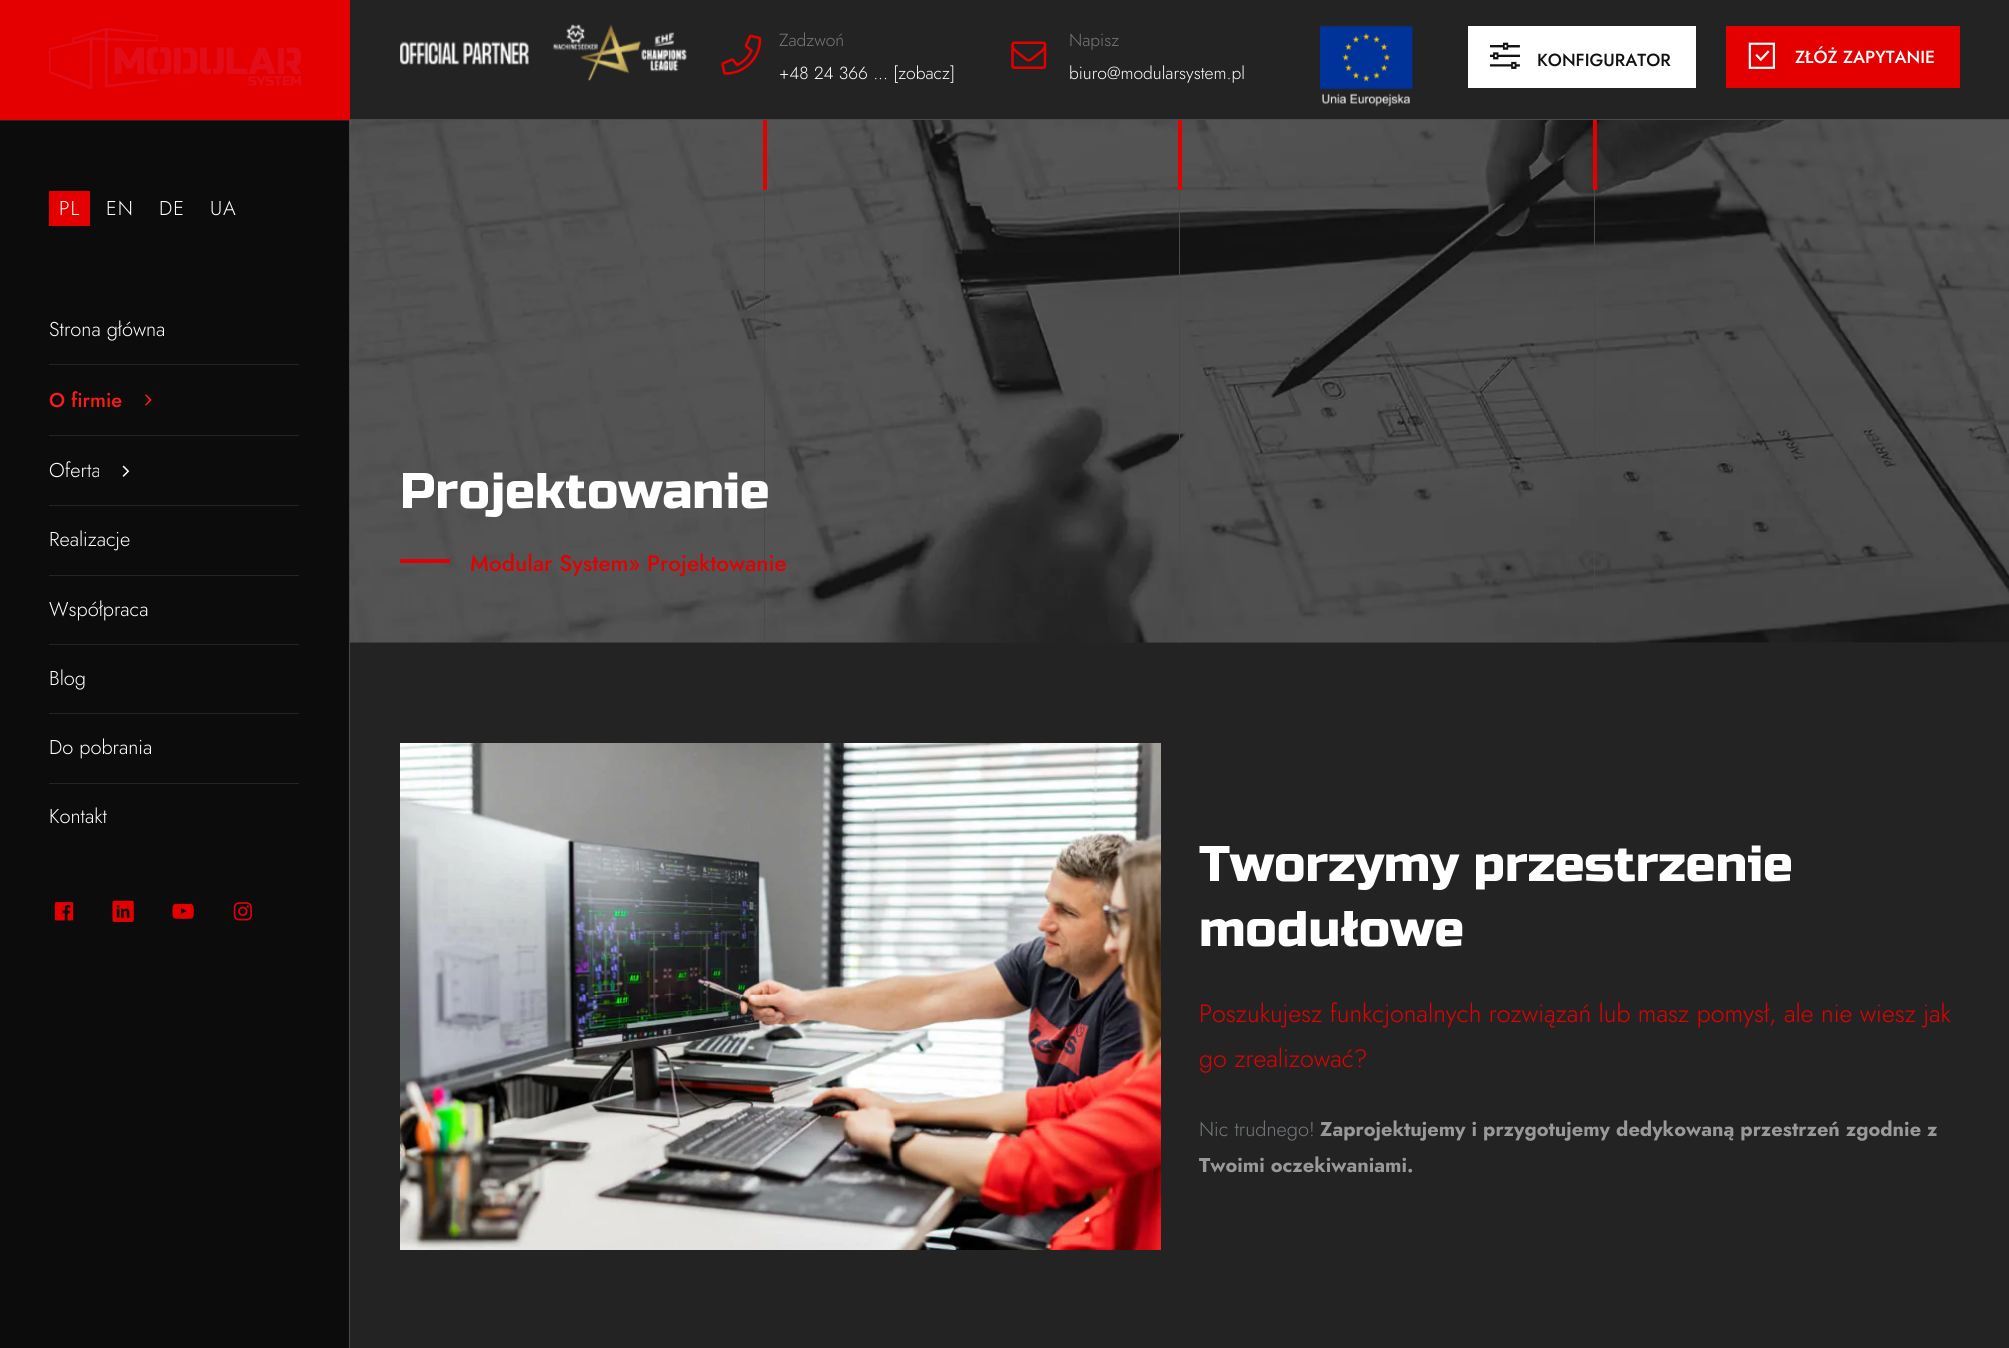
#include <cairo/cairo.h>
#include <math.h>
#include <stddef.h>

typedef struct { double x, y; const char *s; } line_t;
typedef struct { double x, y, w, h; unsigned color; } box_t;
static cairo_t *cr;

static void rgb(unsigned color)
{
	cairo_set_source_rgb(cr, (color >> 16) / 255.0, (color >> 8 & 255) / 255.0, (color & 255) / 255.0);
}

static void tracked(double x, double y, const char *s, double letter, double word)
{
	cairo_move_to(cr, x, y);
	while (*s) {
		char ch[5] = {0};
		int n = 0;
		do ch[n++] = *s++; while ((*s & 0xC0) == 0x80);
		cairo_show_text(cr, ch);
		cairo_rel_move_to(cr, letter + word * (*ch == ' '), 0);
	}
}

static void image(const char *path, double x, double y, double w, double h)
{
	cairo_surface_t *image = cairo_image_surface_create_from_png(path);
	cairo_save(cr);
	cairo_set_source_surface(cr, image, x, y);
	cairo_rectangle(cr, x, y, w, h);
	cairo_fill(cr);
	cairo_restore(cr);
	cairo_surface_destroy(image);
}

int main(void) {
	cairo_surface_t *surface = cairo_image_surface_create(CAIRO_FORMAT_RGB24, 2009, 1348);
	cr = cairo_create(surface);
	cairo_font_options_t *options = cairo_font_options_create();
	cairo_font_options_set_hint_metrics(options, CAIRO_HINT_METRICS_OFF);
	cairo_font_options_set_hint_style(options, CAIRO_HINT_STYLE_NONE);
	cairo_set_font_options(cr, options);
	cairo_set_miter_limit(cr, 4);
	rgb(0x232323);
	cairo_paint(cr);
	rgb(0x0c0c0c);
	cairo_rectangle(cr, 0, 121, 349, 1227);
	cairo_fill(cr);
	rgb(0xe40001);
	cairo_rectangle(cr, 0, 0, 350, 120);
	cairo_fill(cr);
	image("img/1.png", 49, 28, 252, 61);
	{
		static const box_t items[] = {
			{349, 120, 1, 1228, 0x4a4a4a},
			{49, 191, 41, 35, 0xe40001},
			{49, 364, 250, 1, 0x242424},
			{49, 435, 250, 1, 0x242424},
		};
		for (size_t i = 0; i < sizeof items / sizeof *items; i++) {
			rgb(items[i].color);
			cairo_rectangle(cr, items[i].x, items[i].y, items[i].w, items[i].h);
			cairo_fill(cr);
		}
	}
	image("img/2.png", 145, 394, 7, 12);
	cairo_rectangle(cr, 49, 505, 250, 1);
	cairo_fill(cr);
	image("img/3.png", 122, 465, 8, 12);
	{
		static const box_t items[] = {
			{49, 575, 250, 1, 0x242424},
			{49, 644, 250, 1, 0x242424},
			{49, 713, 250, 1, 0x242424},
			{49, 783, 250, 1, 0x242424},
		};
		for (size_t i = 0; i < sizeof items / sizeof *items; i++) {
			rgb(items[i].color);
			cairo_rectangle(cr, items[i].x, items[i].y, items[i].w, items[i].h);
			cairo_fill(cr);
		}
	}
	image("img/4.png", 55, 902, 18, 19);
	image("img/5.png", 55, 902, 19, 19);
	image("img/7.png", 112, 901, 22, 21);
	image("img/6.png", 112, 900, 22, 22);
	image("img/9.png", 172, 904, 22, 15);
	image("img/8.png", 172, 903, 22, 16);
	image("img/11.png", 234, 902, 18, 19);
	image("img/10.png", 233, 902, 19, 19);
	rgb(0x4a4a4a);
	cairo_rectangle(cr, 350, 119, 1659, 1);
	cairo_fill(cr);
	image("img/12.png", 400, 24, 287, 57);
	image("img/13.png", 721, 34, 41, 41);
	image("img/14.png", 1011, 41, 36, 28);
	image("img/15.png", 1320, 25, 93, 82);
	rgb(0xffffff);
	cairo_rectangle(cr, 1468, 26, 228, 62);
	cairo_fill(cr);
	image("img/16.png", 1490, 42, 30, 27);
	rgb(0xe40001);
	cairo_rectangle(cr, 1726, 26, 234, 62);
	cairo_fill(cr);
	image("img/17.png", 1748, 42, 27, 27);
	rgb(0x272727);
	cairo_rectangle(cr, 350, 642, 1659, 1);
	cairo_fill(cr);
	image("img/18.png", 350, 120, 1659, 523);
	{
		static const box_t items[] = {
			{400, 559, 50, 4, 0xe40001},
			{764, 190, 1, 453, 0x4a4a4a},
			{763, 120, 4, 70, 0xe40001},
			{1179, 190, 1, 453, 0x4a4a4a},
			{1178, 120, 4, 70, 0xe40001},
			{1594, 190, 1, 453, 0x4a4a4a},
			{1593, 120, 4, 70, 0xe40001},
		};
		for (size_t i = 0; i < sizeof items / sizeof *items; i++) {
			rgb(items[i].color);
			cairo_rectangle(cr, items[i].x, items[i].y, items[i].w, items[i].h);
			cairo_fill(cr);
		}
	}
	image("img/19.png", 400, 743, 761, 507);
	cairo_select_font_face(cr, "Jost Light", CAIRO_FONT_SLANT_NORMAL, CAIRO_FONT_WEIGHT_NORMAL);
	cairo_set_font_size(cr, 20);
	rgb(0xffffff);
	{
		static const line_t items[] = {
			{59, 215, "PL"},
			{106, 215, "EN"},
			{159, 215, "DE"},
			{210, 215, "UA"},
		};
		for (size_t i = 0; i < sizeof items / sizeof *items; i++) {
			tracked(items[i].x, items[i].y, items[i].s, 1, 0);
		}
	}
	cairo_move_to(cr, 49, 336);
	cairo_show_text(cr, "Strona główna");
	cairo_select_font_face(cr, "Jost Medium", CAIRO_FONT_SLANT_NORMAL, CAIRO_FONT_WEIGHT_NORMAL);
	rgb(0xff1a1a);
	cairo_move_to(cr, 49, 407);
	cairo_show_text(cr, "O firmie");
	cairo_select_font_face(cr, "Jost Light", CAIRO_FONT_SLANT_NORMAL, CAIRO_FONT_WEIGHT_NORMAL);
	rgb(0xffffff);
	{
		static const line_t items[] = {
			{49, 477, "Oferta"},
			{49, 546, "Realizacje"},
			{49, 616, "Współpraca"},
			{49, 685, "Blog"},
			{49, 754, "Do pobrania"},
			{49, 823, "Kontakt"},
		};
		for (size_t i = 0; i < sizeof items / sizeof *items; i++) {
			cairo_move_to(cr, items[i].x, items[i].y);
			cairo_show_text(cr, items[i].s);
		}
	}
	cairo_set_font_size(cr, 17.5);
	rgb(0x74787c);
	cairo_move_to(cr, 779, 46);
	cairo_show_text(cr, "Zadzwoń");
	rgb(0xffffff);
	cairo_move_to(cr, 779, 79);
	cairo_show_text(cr, "+48 24 366 ... [zobacz]");
	rgb(0x74787c);
	cairo_move_to(cr, 1069, 46);
	cairo_show_text(cr, "Napisz");
	rgb(0xffffff);
	cairo_move_to(cr, 1069, 79);
	cairo_show_text(cr, "biuro@modularsystem.pl");
	cairo_select_font_face(cr, "Jost Medium", CAIRO_FONT_SLANT_NORMAL, CAIRO_FONT_WEIGHT_NORMAL);
	rgb(0x111111);
	cairo_move_to(cr, 1537, 66);
	cairo_show_text(cr, "KONFIGURATOR");
	rgb(0xffffff);
	cairo_move_to(cr, 1795, 63);
	cairo_show_text(cr, "ZŁÓŻ ZAPYTANIE");
	cairo_select_font_face(cr, "Russo One", CAIRO_FONT_SLANT_NORMAL, CAIRO_FONT_WEIGHT_NORMAL);
	cairo_set_font_size(cr, 50);
	cairo_move_to(cr, 400, 508);
	cairo_show_text(cr, "Projektowanie");
	cairo_select_font_face(cr, "Jost Medium", CAIRO_FONT_SLANT_NORMAL, CAIRO_FONT_WEIGHT_NORMAL);
	cairo_set_font_size(cr, 22.5);
	rgb(0xe40001);
	cairo_move_to(cr, 470, 571);
	cairo_show_text(cr, "Modular System» Projektowanie");
	cairo_select_font_face(cr, "Russo One", CAIRO_FONT_SLANT_NORMAL, CAIRO_FONT_WEIGHT_NORMAL);
	cairo_set_font_size(cr, 50);
	rgb(0xffffff);
	cairo_move_to(cr, 1199, 881);
	cairo_show_text(cr, "Tworzymy przestrzenie");
	cairo_move_to(cr, 1199, 946);
	cairo_show_text(cr, "modułowe");
	cairo_select_font_face(cr, "Jost Light", CAIRO_FONT_SLANT_NORMAL, CAIRO_FONT_WEIGHT_NORMAL);
	cairo_set_font_size(cr, 25);
	rgb(0xe40001);
	cairo_move_to(cr, 1199, 1022);
	cairo_show_text(cr, "Poszukujesz funkcjonalnych rozwiązań lub masz pomysł, ale nie wiesz jak");
	cairo_move_to(cr, 1199, 1067);
	cairo_show_text(cr, "go zrealizować?");
	cairo_set_font_size(cr, 20);
	rgb(0x74787c);
	cairo_move_to(cr, 1199, 1136);
	cairo_show_text(cr, "Nic trudnego!");
	cairo_select_font_face(cr, "Jost", CAIRO_FONT_SLANT_NORMAL, CAIRO_FONT_WEIGHT_BOLD);
	rgb(0x999999);
	cairo_move_to(cr, 1320, 1136);
	cairo_show_text(cr, "Zaprojektujemy i przygotujemy dedykowaną przestrzeń zgodnie z");
	cairo_move_to(cr, 1199, 1172);
	cairo_show_text(cr, "Twoimi oczekiwaniami.");
	cairo_surface_write_to_png(surface, "page.png");
	cairo_font_options_destroy(options);
	cairo_destroy(cr);
	cairo_surface_destroy(surface);
	return 0;
}
